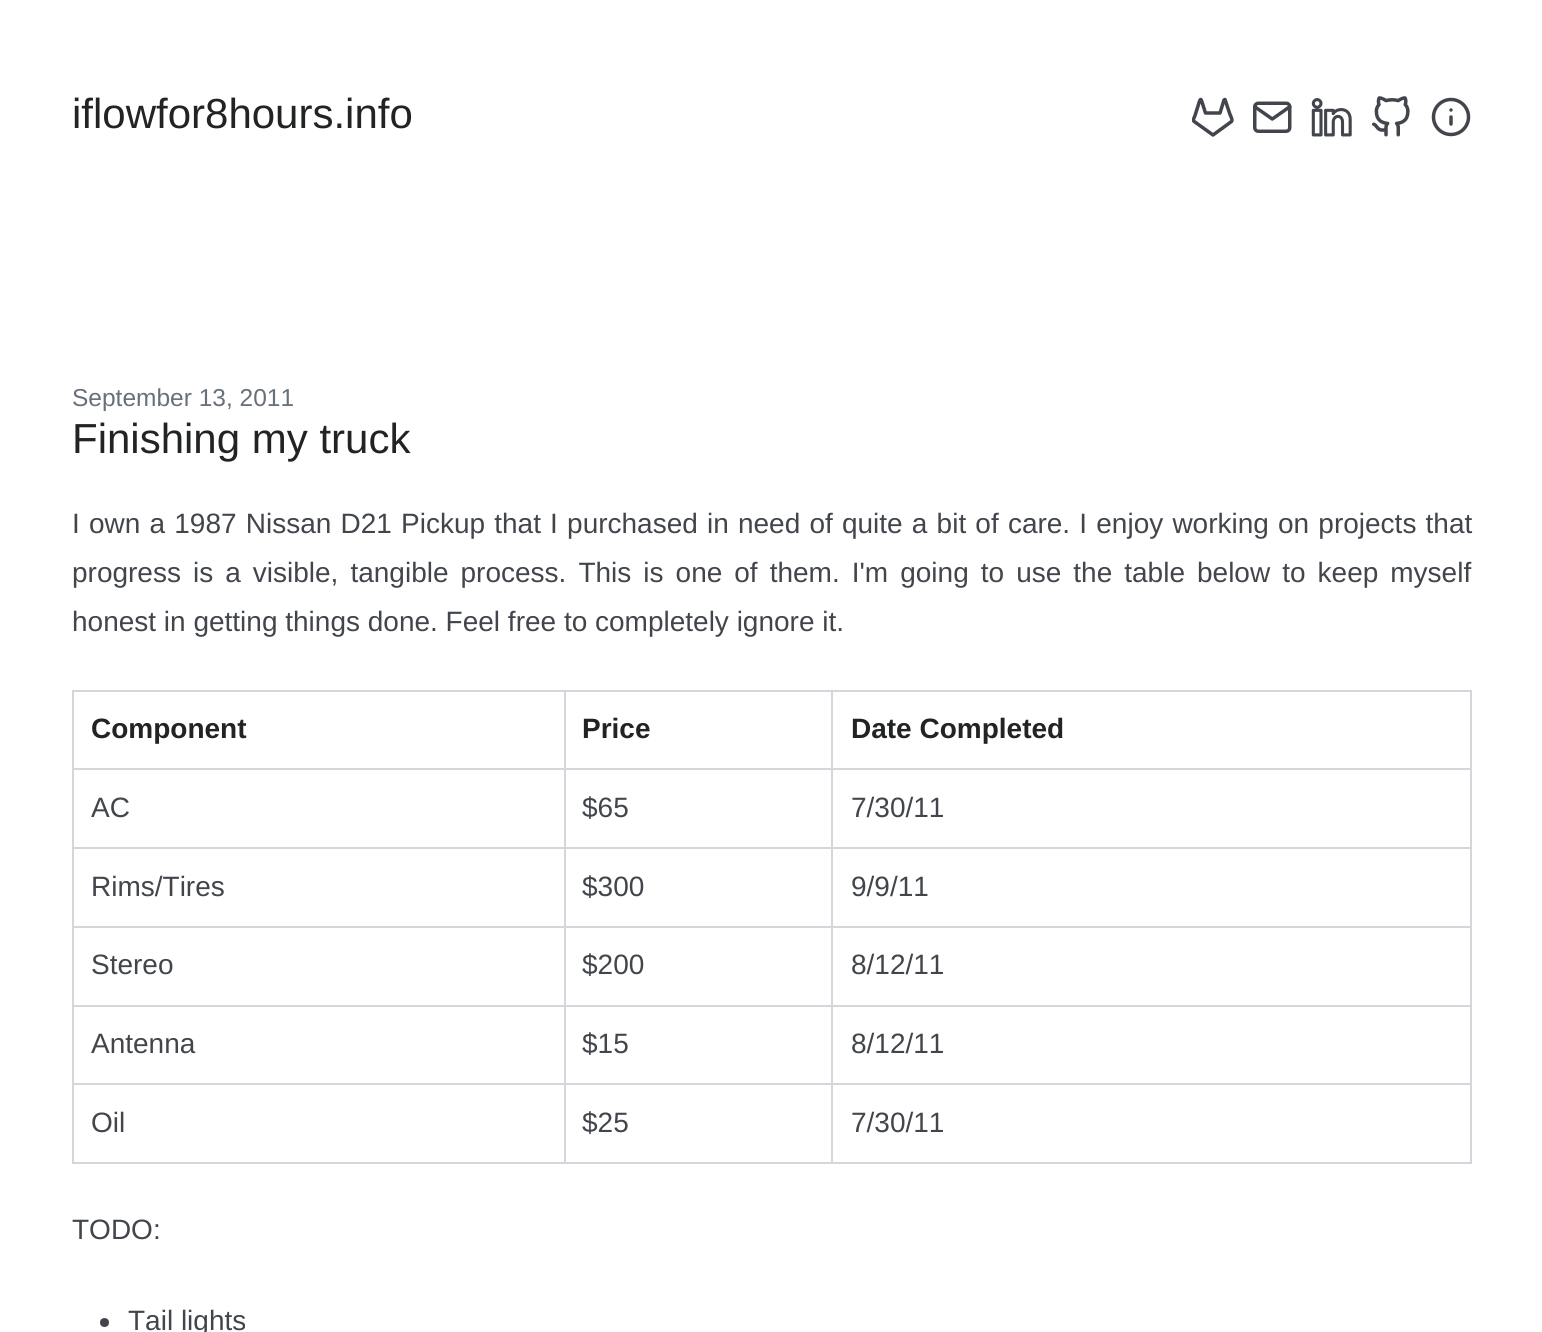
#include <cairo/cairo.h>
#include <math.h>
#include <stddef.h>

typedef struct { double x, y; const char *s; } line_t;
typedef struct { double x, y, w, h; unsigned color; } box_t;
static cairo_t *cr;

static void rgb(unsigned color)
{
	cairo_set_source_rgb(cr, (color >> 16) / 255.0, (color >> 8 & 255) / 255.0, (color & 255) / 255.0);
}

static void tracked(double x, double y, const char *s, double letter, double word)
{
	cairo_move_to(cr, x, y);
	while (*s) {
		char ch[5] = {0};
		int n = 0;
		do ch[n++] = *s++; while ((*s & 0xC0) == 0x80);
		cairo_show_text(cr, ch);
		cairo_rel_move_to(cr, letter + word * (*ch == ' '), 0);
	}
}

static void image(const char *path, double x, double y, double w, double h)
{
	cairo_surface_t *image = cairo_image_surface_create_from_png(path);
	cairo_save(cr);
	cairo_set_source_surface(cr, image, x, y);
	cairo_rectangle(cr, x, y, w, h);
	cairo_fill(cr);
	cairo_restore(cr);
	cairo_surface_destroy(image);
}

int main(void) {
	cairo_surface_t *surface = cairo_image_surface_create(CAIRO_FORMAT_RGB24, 1542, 1332);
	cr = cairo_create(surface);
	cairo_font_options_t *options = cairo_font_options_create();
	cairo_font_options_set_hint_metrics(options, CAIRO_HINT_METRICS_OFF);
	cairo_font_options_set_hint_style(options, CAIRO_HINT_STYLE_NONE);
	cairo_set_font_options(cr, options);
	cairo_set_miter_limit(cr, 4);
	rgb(0xffffff);
	cairo_paint(cr);
	cairo_save(cr);
	cairo_rectangle(cr, 1192, 96, 42, 42);
	cairo_clip(cr);
	cairo_new_path(cr);
	cairo_move_to(cr, 1231.5, 121.5);
	cairo_line_to(cr, 1213, 135);
	cairo_line_to(cr, 1197, 123.5);
	cairo_curve_to(cr, 1192, 120, 1193, 121, 1195, 115.5);
	cairo_line_to(cr, 1198.5, 104.5);
	cairo_curve_to(cr, 1199.5, 101, 1200.5, 96.5, 1202, 102);
	cairo_line_to(cr, 1205.5, 113);
	cairo_line_to(cr, 1220, 113);
	cairo_line_to(cr, 1224, 100);
	cairo_curve_to(cr, 1224.5, 99.5, 1225, 99.5, 1225, 99.5);
	cairo_line_to(cr, 1230, 114.5);
	cairo_curve_to(cr, 1230.5, 115.5, 1233, 120.5, 1231.5, 121.5);
	cairo_close_path(cr);
	rgb(0x42464c);
	cairo_set_line_width(cr, 3.5);
	cairo_set_line_cap(cr, CAIRO_LINE_CAP_ROUND);
	cairo_set_line_join(cr, CAIRO_LINE_JOIN_ROUND);
	cairo_stroke(cr);
	cairo_restore(cr);
	image("img/1.png", 1253, 101, 39, 32);
	image("img/2.png", 1311, 98, 41, 39);
	image("img/3.png", 1372, 96, 38, 41);
	cairo_arc(cr, 1451, 117, 17.5, 0, 2 * M_PI);
	rgb(0x42464c);
	cairo_set_line_width(cr, 3.5);
	cairo_stroke(cr);
	cairo_new_path(cr);
	cairo_move_to(cr, 1451, 124);
	cairo_line_to(cr, 1451, 117);
	cairo_move_to(cr, 1451, 110);
	cairo_line_to(cr, 1451, 110);
	cairo_set_line_cap(cr, CAIRO_LINE_CAP_ROUND);
	cairo_set_line_join(cr, CAIRO_LINE_JOIN_ROUND);
	cairo_stroke(cr);
	{
		static const box_t items[] = {
			{831, 690, 641, 2, 0xd3d6db},
			{831, 768, 641, 2, 0xd3d6db},
			{831, 847, 641, 2, 0xd3d6db},
			{831, 926, 641, 2, 0xd3d6db},
			{831, 1005, 641, 2, 0xd3d6db},
			{831, 1083, 641, 2, 0xd3d6db},
			{1470, 1083, 2, 81, 0xd3d6db},
			{831, 1162, 641, 2, 0xd3d6db},
			{831, 1083, 2, 81, 0xd3d6db},
			{564, 1083, 269, 2, 0xd3d6db},
			{831, 1005, 2, 80, 0xd3d6db},
			{564, 1005, 269, 2, 0xd3d6db},
			{831, 926, 2, 80, 0xd3d6db},
			{564, 926, 269, 2, 0xd3d6db},
			{831, 847, 2, 81, 0xd3d6db},
			{564, 847, 269, 2, 0xd3d6db},
			{831, 768, 2, 81, 0xd3d6db},
			{564, 768, 269, 2, 0xd3d6db},
			{831, 690, 2, 80, 0xd3d6db},
			{564, 690, 269, 2, 0xd3d6db},
			{564, 1162, 269, 2, 0xd3d6db},
			{564, 1083, 2, 81, 0xd3d6db},
			{72, 1083, 493, 2, 0xd3d6db},
			{564, 1005, 2, 80, 0xd3d6db},
			{72, 1005, 493, 2, 0xd3d6db},
			{564, 926, 2, 80, 0xd3d6db},
			{72, 926, 493, 2, 0xd3d6db},
			{564, 847, 2, 81, 0xd3d6db},
			{72, 847, 493, 2, 0xd3d6db},
			{564, 768, 2, 81, 0xd3d6db},
			{72, 768, 493, 2, 0xd3d6db},
			{564, 690, 2, 80, 0xd3d6db},
			{72, 690, 493, 2, 0xd3d6db},
			{72, 1162, 493, 2, 0xd3d6db},
			{72, 1083, 2, 81, 0xd3d6db},
			{72, 1005, 2, 80, 0xd3d6db},
			{72, 926, 2, 80, 0xd3d6db},
			{72, 847, 2, 81, 0xd3d6db},
			{72, 768, 2, 81, 0xd3d6db},
			{72, 690, 2, 80, 0xd3d6db},
			{1470, 1005, 2, 80, 0xd3d6db},
			{1470, 926, 2, 80, 0xd3d6db},
			{1470, 847, 2, 81, 0xd3d6db},
			{1470, 768, 2, 81, 0xd3d6db},
			{1470, 690, 2, 80, 0xd3d6db},
		};
		for (size_t i = 0; i < sizeof items / sizeof *items; i++) {
			rgb(items[i].color);
			cairo_rectangle(cr, items[i].x, items[i].y, items[i].w, items[i].h);
			cairo_fill(cr);
		}
	}
	rgb(0x42464c);
	cairo_arc(cr, 104.5, 1322.5, 4.5, 0, 2 * M_PI);
	cairo_fill(cr);
	cairo_select_font_face(cr, "Liberation Sans", CAIRO_FONT_SLANT_NORMAL, CAIRO_FONT_WEIGHT_NORMAL);
	cairo_set_font_size(cr, 42);
	rgb(0x222324);
	cairo_move_to(cr, 72, 128);
	cairo_show_text(cr, "iflowfor8hours.info");
	cairo_set_font_size(cr, 24.5);
	rgb(0x69707a);
	cairo_move_to(cr, 72, 406);
	cairo_show_text(cr, "September 13, 2011");
	cairo_set_font_size(cr, 42);
	rgb(0x222324);
	cairo_move_to(cr, 72, 453);
	cairo_show_text(cr, "Finishing my truck");
	cairo_set_font_size(cr, 28);
	rgb(0x42464c);
	tracked(72, 533, "I own a 1987 Nissan D21 Pickup that I purchased in need of quite a bit of care. I enjoy working on projects that", 0, 1.4);
	tracked(72, 582, "progress is a visible, tangible process. This is one of them. I'm going to use the table below to keep myself", 0, 4.25);
	cairo_move_to(cr, 72, 631);
	cairo_show_text(cr, "honest in getting things done. Feel free to completely ignore it.");
	cairo_select_font_face(cr, "Liberation Sans", CAIRO_FONT_SLANT_NORMAL, CAIRO_FONT_WEIGHT_BOLD);
	rgb(0x222324);
	{
		static const line_t items[] = {
			{91, 738, "Component"},
			{582, 738, "Price"},
			{851, 738, "Date Completed"},
		};
		for (size_t i = 0; i < sizeof items / sizeof *items; i++) {
			cairo_move_to(cr, items[i].x, items[i].y);
			cairo_show_text(cr, items[i].s);
		}
	}
	cairo_select_font_face(cr, "Liberation Sans", CAIRO_FONT_SLANT_NORMAL, CAIRO_FONT_WEIGHT_NORMAL);
	rgb(0x42464c);
	{
		static const line_t items[] = {
			{91, 817, "AC"},
			{582, 817, "$65"},
			{851, 817, "7/30/11"},
			{91, 896, "Rims/Tires"},
			{582, 896, "$300"},
			{851, 896, "9/9/11"},
			{91, 974, "Stereo"},
			{582, 974, "$200"},
			{851, 974, "8/12/11"},
			{91, 1053, "Antenna"},
			{582, 1053, "$15"},
			{851, 1053, "8/12/11"},
			{91, 1132, "Oil"},
			{582, 1132, "$25"},
			{851, 1132, "7/30/11"},
			{72, 1239, "TODO:"},
			{128, 1330, "Tail lights"},
		};
		for (size_t i = 0; i < sizeof items / sizeof *items; i++) {
			cairo_move_to(cr, items[i].x, items[i].y);
			cairo_show_text(cr, items[i].s);
		}
	}
	cairo_surface_write_to_png(surface, "page.png");
	cairo_font_options_destroy(options);
	cairo_destroy(cr);
	cairo_surface_destroy(surface);
	return 0;
}
